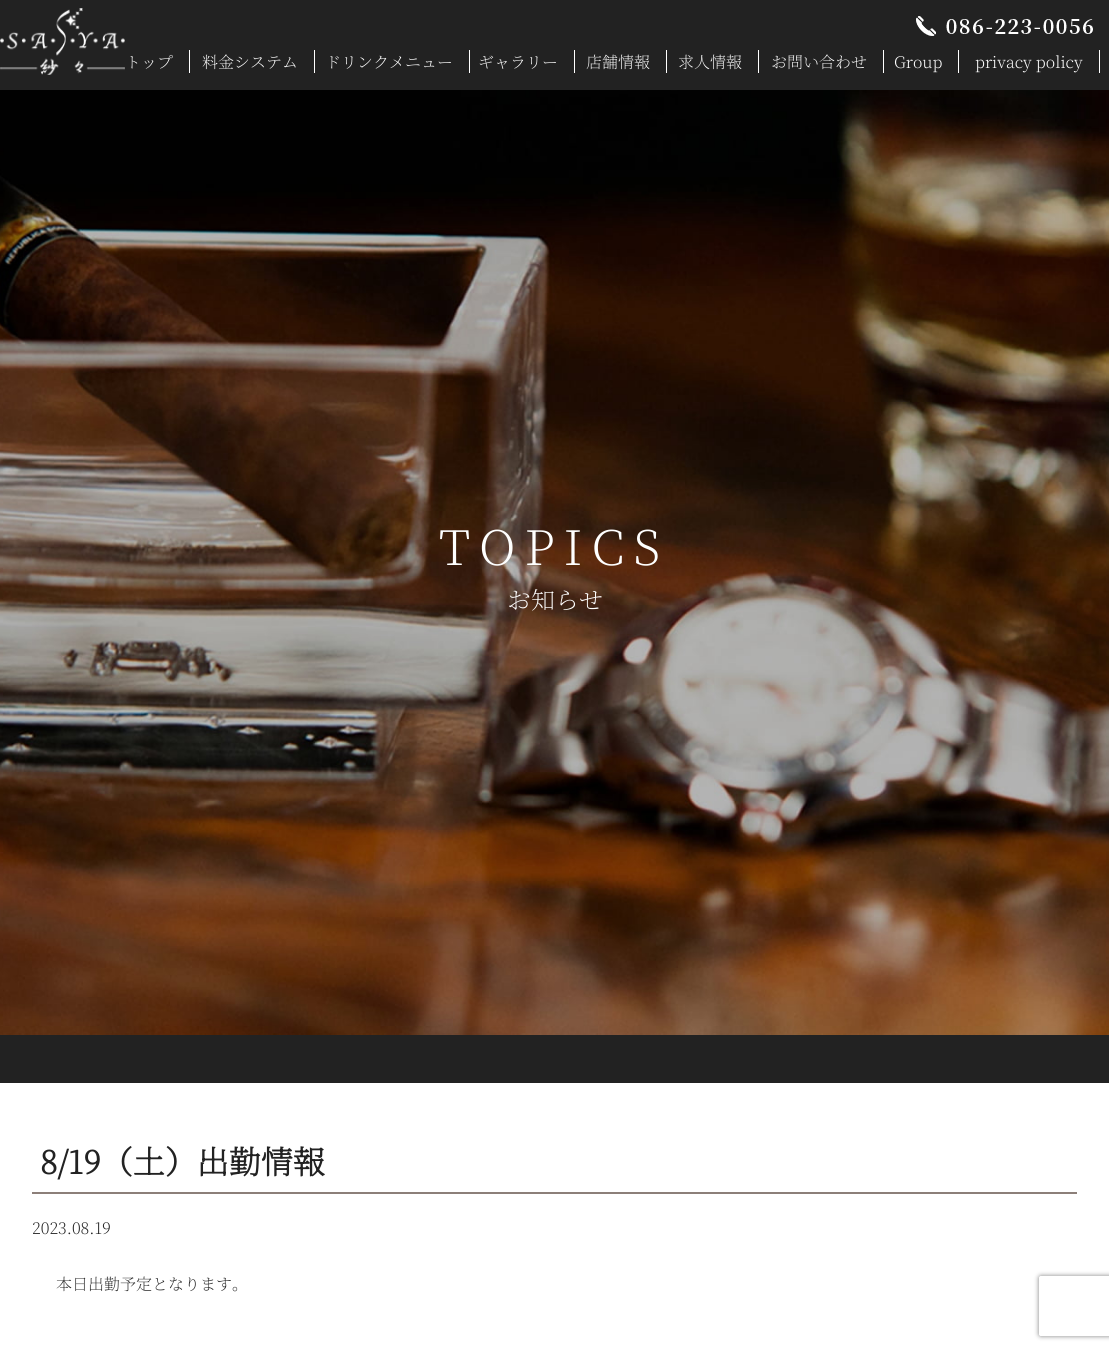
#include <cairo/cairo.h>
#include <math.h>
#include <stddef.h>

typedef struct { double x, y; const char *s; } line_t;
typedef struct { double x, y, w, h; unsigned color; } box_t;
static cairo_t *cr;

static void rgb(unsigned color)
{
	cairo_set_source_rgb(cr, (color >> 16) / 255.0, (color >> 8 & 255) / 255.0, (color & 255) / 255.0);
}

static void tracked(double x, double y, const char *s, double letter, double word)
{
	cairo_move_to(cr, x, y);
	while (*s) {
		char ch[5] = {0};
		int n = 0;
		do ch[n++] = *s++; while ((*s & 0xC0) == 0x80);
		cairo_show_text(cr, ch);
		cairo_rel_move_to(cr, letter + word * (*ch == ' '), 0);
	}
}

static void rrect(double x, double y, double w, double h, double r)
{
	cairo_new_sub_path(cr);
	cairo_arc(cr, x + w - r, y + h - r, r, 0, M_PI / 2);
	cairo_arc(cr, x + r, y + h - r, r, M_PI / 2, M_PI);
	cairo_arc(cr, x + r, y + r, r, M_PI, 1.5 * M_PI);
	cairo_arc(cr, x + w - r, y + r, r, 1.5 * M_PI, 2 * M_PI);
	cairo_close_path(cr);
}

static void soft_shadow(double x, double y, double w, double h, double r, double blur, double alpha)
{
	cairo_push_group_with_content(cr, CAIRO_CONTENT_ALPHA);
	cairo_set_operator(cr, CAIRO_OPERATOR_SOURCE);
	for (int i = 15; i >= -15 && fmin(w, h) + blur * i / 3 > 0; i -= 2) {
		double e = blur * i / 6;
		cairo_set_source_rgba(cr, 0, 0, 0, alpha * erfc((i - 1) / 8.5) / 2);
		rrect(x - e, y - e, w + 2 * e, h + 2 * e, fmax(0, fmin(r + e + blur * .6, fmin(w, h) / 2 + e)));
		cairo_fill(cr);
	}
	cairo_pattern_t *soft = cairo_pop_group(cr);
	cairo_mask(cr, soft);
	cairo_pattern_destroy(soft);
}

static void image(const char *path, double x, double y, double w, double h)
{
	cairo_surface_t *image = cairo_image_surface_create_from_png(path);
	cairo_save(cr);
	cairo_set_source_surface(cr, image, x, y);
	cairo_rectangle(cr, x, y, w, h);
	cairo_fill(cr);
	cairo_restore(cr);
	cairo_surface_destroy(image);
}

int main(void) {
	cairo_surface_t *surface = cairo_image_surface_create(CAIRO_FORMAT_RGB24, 1109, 1350);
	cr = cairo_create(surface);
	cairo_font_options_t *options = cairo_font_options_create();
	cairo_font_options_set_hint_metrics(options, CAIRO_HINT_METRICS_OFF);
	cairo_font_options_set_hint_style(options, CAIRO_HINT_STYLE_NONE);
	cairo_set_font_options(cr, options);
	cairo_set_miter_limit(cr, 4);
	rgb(0x222222);
	cairo_paint(cr);
	image("img/1.png", 0, 8, 125, 67);
	image("img/2.png", 916, 16, 177, 20);
	{
		static const box_t items[] = {
			{189, 50, 1, 23, 0xffffff},
			{314, 50, 1, 23, 0xffffff},
			{469, 50, 1, 23, 0xffffff},
			{574, 50, 1, 23, 0xffffff},
			{666, 50, 1, 23, 0xffffff},
			{758, 50, 1, 23, 0xffffff},
			{883, 50, 1, 23, 0xffffff},
			{958, 50, 1, 23, 0xffffff},
			{1099, 50, 1, 23, 0xffffff},
		};
		for (size_t i = 0; i < sizeof items / sizeof *items; i++) {
			rgb(items[i].color);
			cairo_rectangle(cr, items[i].x, items[i].y, items[i].w, items[i].h);
			cairo_fill(cr);
		}
	}
	image("img/3.png", 0, 90, 1109, 945);
	cairo_rectangle(cr, 0, 1083, 1109, 267);
	cairo_fill(cr);
	rgb(0x8c7f79);
	cairo_rectangle(cr, 32, 1192, 1045, 2);
	cairo_fill(cr);
	cairo_save(cr);
	cairo_set_fill_rule(cr, CAIRO_FILL_RULE_EVEN_ODD);
	cairo_new_path(cr);
	cairo_move_to(cr, 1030, 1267);
	cairo_line_to(cr, 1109, 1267);
	cairo_line_to(cr, 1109, 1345);
	cairo_line_to(cr, 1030, 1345);
	cairo_close_path(cr);
	cairo_move_to(cr, 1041, 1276);
	cairo_line_to(cr, 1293, 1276);
	cairo_curve_to(cr, 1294, 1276, 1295, 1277, 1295, 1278);
	cairo_line_to(cr, 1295, 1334);
	cairo_curve_to(cr, 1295, 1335, 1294, 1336, 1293, 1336);
	cairo_line_to(cr, 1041, 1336);
	cairo_curve_to(cr, 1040, 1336, 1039, 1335, 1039, 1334);
	cairo_line_to(cr, 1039, 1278);
	cairo_curve_to(cr, 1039, 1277, 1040, 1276, 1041, 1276);
	cairo_close_path(cr);
	cairo_clip(cr);
	rgb(0x808080);
	soft_shadow(1039, 1276, 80, 60, 2, 2.5, 1);
	cairo_restore(cr);
	cairo_select_font_face(cr, "Noto Serif JP ExtraLight", CAIRO_FONT_SLANT_NORMAL, CAIRO_FONT_WEIGHT_NORMAL);
	cairo_set_font_size(cr, 16);
	rgb(0xffffff);
	{
		static const line_t items[] = {
			{125, 68, "トップ"},
			{202, 68, "料金システム"},
			{325, 68, "ドリンクメニュー"},
			{478, 68, "ギャラリー"},
			{586, 68, "店舗情報"},
			{678, 68, "求人情報"},
			{771, 68, "お問い合わせ"},
			{894, 68, "Group"},
			{975, 68, "privacy policy"},
		};
		for (size_t i = 0; i < sizeof items / sizeof *items; i++) {
			cairo_move_to(cr, items[i].x, items[i].y);
			cairo_show_text(cr, items[i].s);
		}
	}
	cairo_set_font_size(cr, 48);
	tracked(439, 565, "TOPICS", 9, 0);
	cairo_set_font_size(cr, 24);
	cairo_move_to(cr, 507, 609);
	cairo_show_text(cr, "お知らせ");
	cairo_select_font_face(cr, "Noto Serif JP", CAIRO_FONT_SLANT_NORMAL, CAIRO_FONT_WEIGHT_BOLD);
	cairo_set_font_size(cr, 32);
	rgb(0x222222);
	cairo_move_to(cr, 40, 1174);
	cairo_show_text(cr, "8/19（土）出勤情報");
	cairo_select_font_face(cr, "Noto Serif JP ExtraLight", CAIRO_FONT_SLANT_NORMAL, CAIRO_FONT_WEIGHT_NORMAL);
	cairo_set_font_size(cr, 16);
	cairo_move_to(cr, 32, 1234);
	cairo_show_text(cr, "2023.08.19");
	cairo_move_to(cr, 56, 1290);
	cairo_show_text(cr, "本日出勤予定となります。");
	cairo_surface_write_to_png(surface, "page.png");
	cairo_font_options_destroy(options);
	cairo_destroy(cr);
	cairo_surface_destroy(surface);
	return 0;
}
